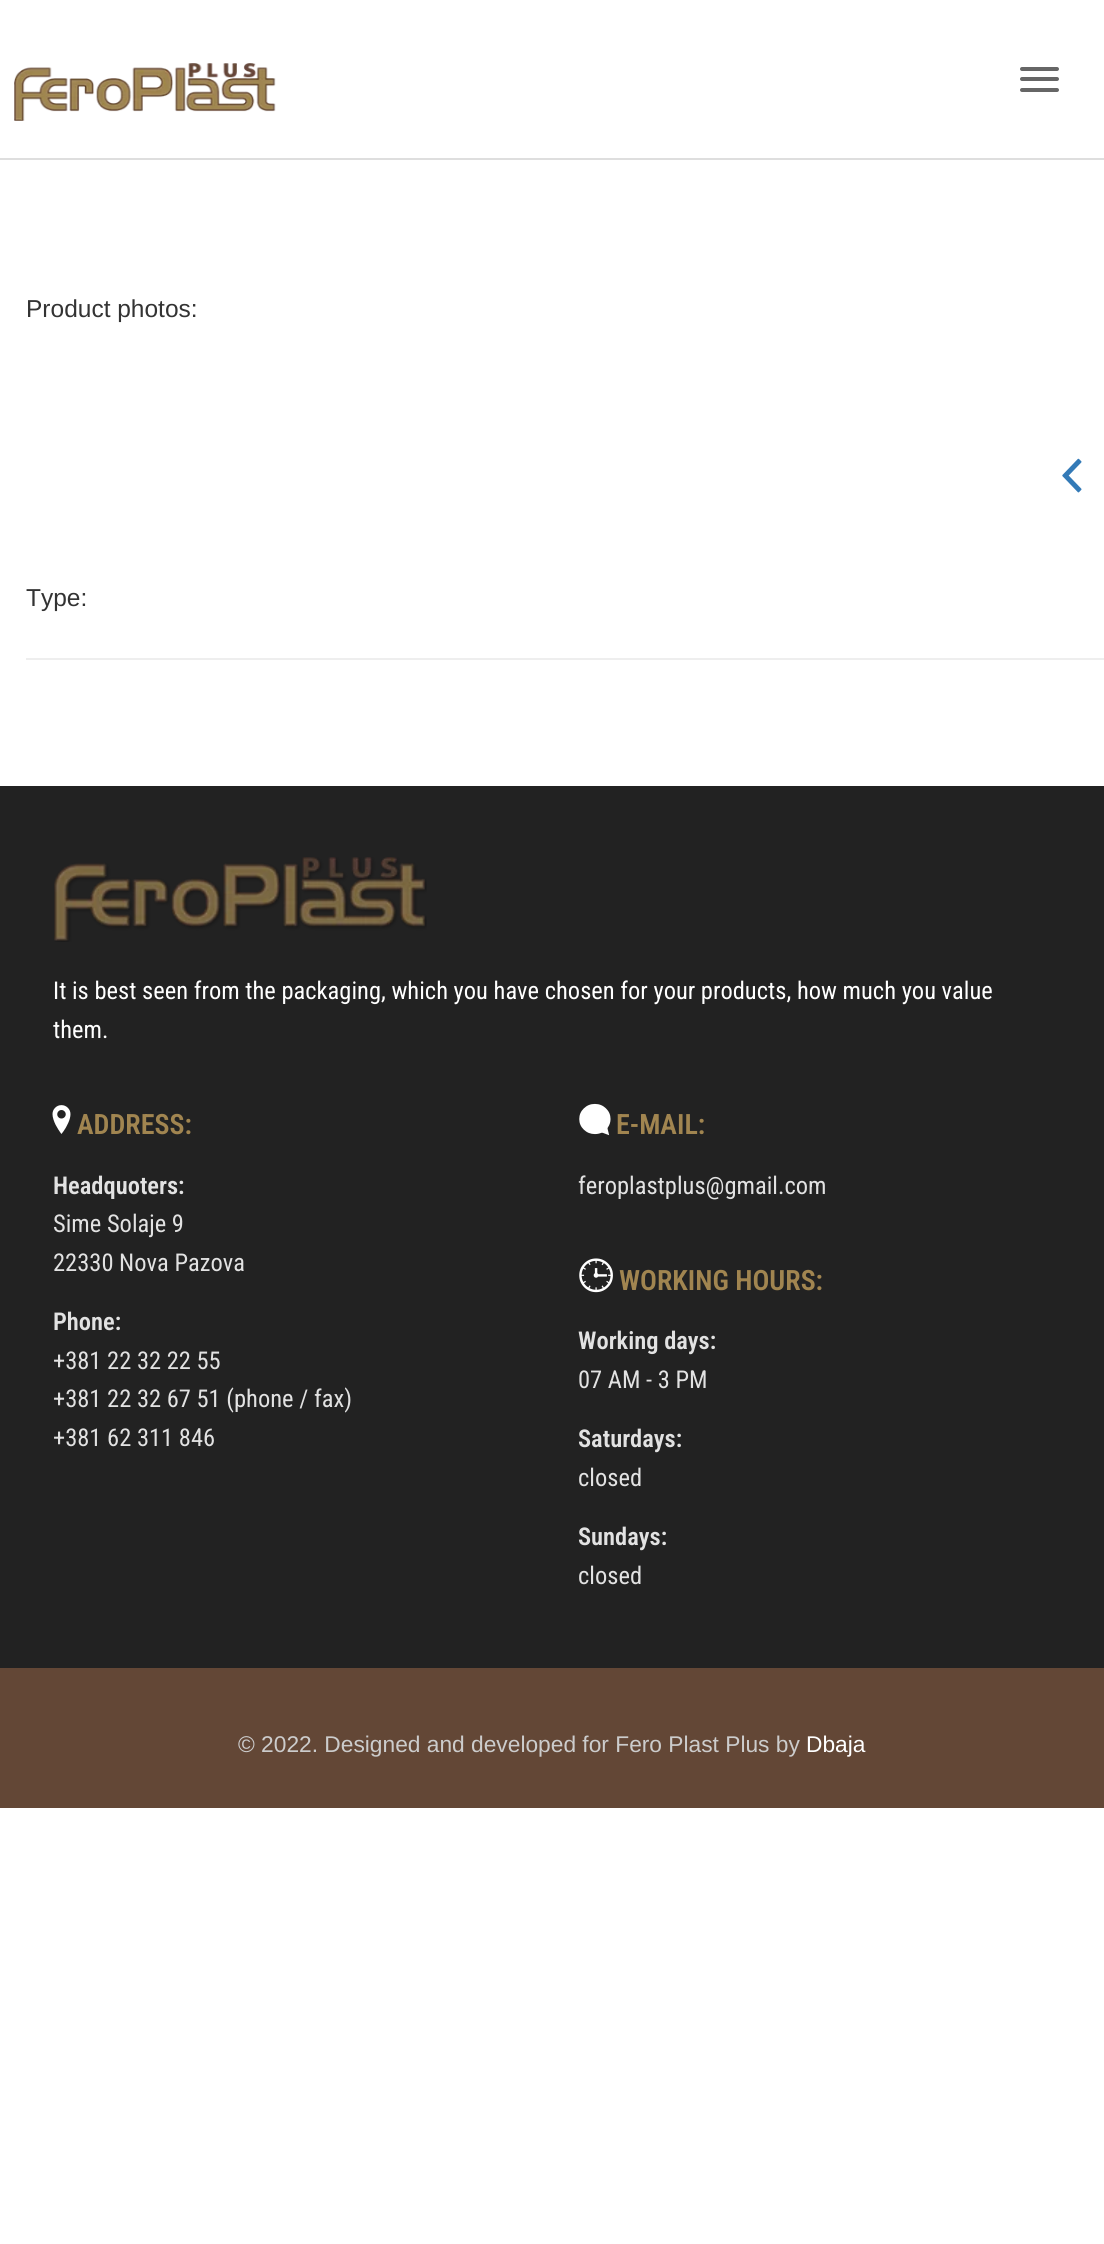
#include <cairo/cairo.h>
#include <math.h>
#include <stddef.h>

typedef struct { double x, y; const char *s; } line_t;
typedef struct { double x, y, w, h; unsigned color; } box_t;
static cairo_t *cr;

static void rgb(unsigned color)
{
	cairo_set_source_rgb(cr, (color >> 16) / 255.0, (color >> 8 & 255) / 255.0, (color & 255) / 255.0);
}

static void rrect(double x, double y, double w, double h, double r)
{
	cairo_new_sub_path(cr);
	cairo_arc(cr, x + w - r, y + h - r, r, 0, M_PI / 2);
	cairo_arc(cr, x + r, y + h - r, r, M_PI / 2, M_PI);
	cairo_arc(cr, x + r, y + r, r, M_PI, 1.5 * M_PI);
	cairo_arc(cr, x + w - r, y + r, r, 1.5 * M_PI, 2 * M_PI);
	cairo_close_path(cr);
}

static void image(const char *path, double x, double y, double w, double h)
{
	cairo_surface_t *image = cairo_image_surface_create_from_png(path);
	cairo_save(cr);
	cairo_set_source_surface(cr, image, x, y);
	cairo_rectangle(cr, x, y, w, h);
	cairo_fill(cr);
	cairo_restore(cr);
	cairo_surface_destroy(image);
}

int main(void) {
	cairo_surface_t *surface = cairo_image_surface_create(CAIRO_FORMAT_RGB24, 1104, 2244);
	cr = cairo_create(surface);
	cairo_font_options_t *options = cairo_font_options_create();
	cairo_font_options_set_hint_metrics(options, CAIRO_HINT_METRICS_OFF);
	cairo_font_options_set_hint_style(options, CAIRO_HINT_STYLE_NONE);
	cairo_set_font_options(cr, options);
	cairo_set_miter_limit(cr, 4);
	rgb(0xffffff);
	cairo_paint(cr);
	rgb(0xdedede);
	cairo_rectangle(cr, 0, 158, 1104, 2);
	cairo_fill(cr);
	image("img/1.png", 14, 63, 262, 58);
	rgb(0x666666);
	rrect(1020, 67, 39, 4, 2);
	cairo_fill(cr);
	rrect(1020, 77, 39, 4, 2);
	cairo_fill(cr);
	rrect(1020, 88, 39, 4, 2);
	cairo_fill(cr);
	image("img/2.png", 1062, 458, 20, 35);
	{
		static const box_t items[] = {
			{26, 658, 1078, 2, 0xeeeeee},
			{0, 1668, 1104, 140, 0x634736},
			{0, 786, 1104, 882, 0x222222},
		};
		for (size_t i = 0; i < sizeof items / sizeof *items; i++) {
			rgb(items[i].color);
			cairo_rectangle(cr, items[i].x, items[i].y, items[i].w, items[i].h);
			cairo_fill(cr);
		}
	}
	image("img/3.png", 54, 857, 373, 85);
	image("img/4.png", 52, 1105, 19, 29);
	image("img/5.png", 579, 1103, 32, 33);
	image("img/6.png", 579, 1258, 34, 35);
	cairo_select_font_face(cr, "Liberation Sans", CAIRO_FONT_SLANT_NORMAL, CAIRO_FONT_WEIGHT_NORMAL);
	cairo_set_font_size(cr, 24.5);
	rgb(0x333333);
	cairo_move_to(cr, 26, 317);
	cairo_show_text(cr, "Product photos:");
	cairo_move_to(cr, 26, 606);
	cairo_show_text(cr, "Type:");
	cairo_select_font_face(cr, "Roboto Condensed", CAIRO_FONT_SLANT_NORMAL, CAIRO_FONT_WEIGHT_NORMAL);
	rgb(0xffffff);
	cairo_move_to(cr, 53, 999);
	cairo_show_text(cr, "It is best seen from the packaging, which you have chosen for your products, how much you value");
	cairo_move_to(cr, 53, 1038);
	cairo_show_text(cr, "them.");
	cairo_select_font_face(cr, "Roboto Condensed SemiBold", CAIRO_FONT_SLANT_NORMAL, CAIRO_FONT_WEIGHT_NORMAL);
	cairo_set_font_size(cr, 28);
	rgb(0xa18550);
	cairo_move_to(cr, 77, 1134);
	cairo_show_text(cr, "ADDRESS:");
	cairo_set_font_size(cr, 24.5);
	rgb(0xe2e2e2);
	cairo_move_to(cr, 53, 1194);
	cairo_show_text(cr, "Headquoters:");
	cairo_select_font_face(cr, "Roboto Condensed", CAIRO_FONT_SLANT_NORMAL, CAIRO_FONT_WEIGHT_NORMAL);
	cairo_move_to(cr, 53, 1232);
	cairo_show_text(cr, "Sime Solaje 9");
	cairo_move_to(cr, 53, 1271);
	cairo_show_text(cr, "22330 Nova Pazova");
	cairo_select_font_face(cr, "Roboto Condensed SemiBold", CAIRO_FONT_SLANT_NORMAL, CAIRO_FONT_WEIGHT_NORMAL);
	cairo_move_to(cr, 53, 1330);
	cairo_show_text(cr, "Phone:");
	cairo_select_font_face(cr, "Roboto Condensed", CAIRO_FONT_SLANT_NORMAL, CAIRO_FONT_WEIGHT_NORMAL);
	{
		static const line_t items[] = {
			{53, 1369, "+381 22 32 22 55"},
			{53, 1407, "+381 22 32 67 51 (phone / fax)"},
			{53, 1446, "+381 62 311 846"},
		};
		for (size_t i = 0; i < sizeof items / sizeof *items; i++) {
			cairo_move_to(cr, items[i].x, items[i].y);
			cairo_show_text(cr, items[i].s);
		}
	}
	cairo_select_font_face(cr, "Roboto Condensed SemiBold", CAIRO_FONT_SLANT_NORMAL, CAIRO_FONT_WEIGHT_NORMAL);
	cairo_set_font_size(cr, 28);
	rgb(0xa18550);
	cairo_move_to(cr, 616, 1134);
	cairo_show_text(cr, "E-MAIL:");
	cairo_select_font_face(cr, "Roboto Condensed", CAIRO_FONT_SLANT_NORMAL, CAIRO_FONT_WEIGHT_NORMAL);
	cairo_set_font_size(cr, 24.5);
	rgb(0xe2e2e2);
	cairo_move_to(cr, 578, 1194);
	cairo_show_text(cr, "feroplastplus@gmail.com");
	cairo_select_font_face(cr, "Roboto Condensed SemiBold", CAIRO_FONT_SLANT_NORMAL, CAIRO_FONT_WEIGHT_NORMAL);
	cairo_set_font_size(cr, 28);
	rgb(0xa18550);
	cairo_move_to(cr, 619, 1290);
	cairo_show_text(cr, "WORKING HOURS:");
	cairo_set_font_size(cr, 24.5);
	rgb(0xe2e2e2);
	cairo_move_to(cr, 578, 1349);
	cairo_show_text(cr, "Working days:");
	cairo_select_font_face(cr, "Roboto Condensed", CAIRO_FONT_SLANT_NORMAL, CAIRO_FONT_WEIGHT_NORMAL);
	cairo_move_to(cr, 578, 1388);
	cairo_show_text(cr, "07 AM - 3 PM");
	cairo_select_font_face(cr, "Roboto Condensed SemiBold", CAIRO_FONT_SLANT_NORMAL, CAIRO_FONT_WEIGHT_NORMAL);
	cairo_move_to(cr, 578, 1447);
	cairo_show_text(cr, "Saturdays:");
	cairo_select_font_face(cr, "Roboto Condensed", CAIRO_FONT_SLANT_NORMAL, CAIRO_FONT_WEIGHT_NORMAL);
	cairo_move_to(cr, 578, 1486);
	cairo_show_text(cr, "closed");
	cairo_select_font_face(cr, "Roboto Condensed SemiBold", CAIRO_FONT_SLANT_NORMAL, CAIRO_FONT_WEIGHT_NORMAL);
	cairo_move_to(cr, 578, 1545);
	cairo_show_text(cr, "Sundays:");
	cairo_select_font_face(cr, "Roboto Condensed", CAIRO_FONT_SLANT_NORMAL, CAIRO_FONT_WEIGHT_NORMAL);
	cairo_move_to(cr, 578, 1584);
	cairo_show_text(cr, "closed");
	cairo_select_font_face(cr, "Liberation Sans", CAIRO_FONT_SLANT_NORMAL, CAIRO_FONT_WEIGHT_NORMAL);
	cairo_set_font_size(cr, 22.75);
	rgb(0xcccccc);
	cairo_move_to(cr, 238, 1752);
	cairo_show_text(cr, "© 2022. Designed and developed for Fero Plast Plus by");
	rgb(0xffffff);
	cairo_move_to(cr, 806, 1752);
	cairo_show_text(cr, "Dbaja");
	cairo_surface_write_to_png(surface, "page.png");
	cairo_font_options_destroy(options);
	cairo_destroy(cr);
	cairo_surface_destroy(surface);
	return 0;
}
